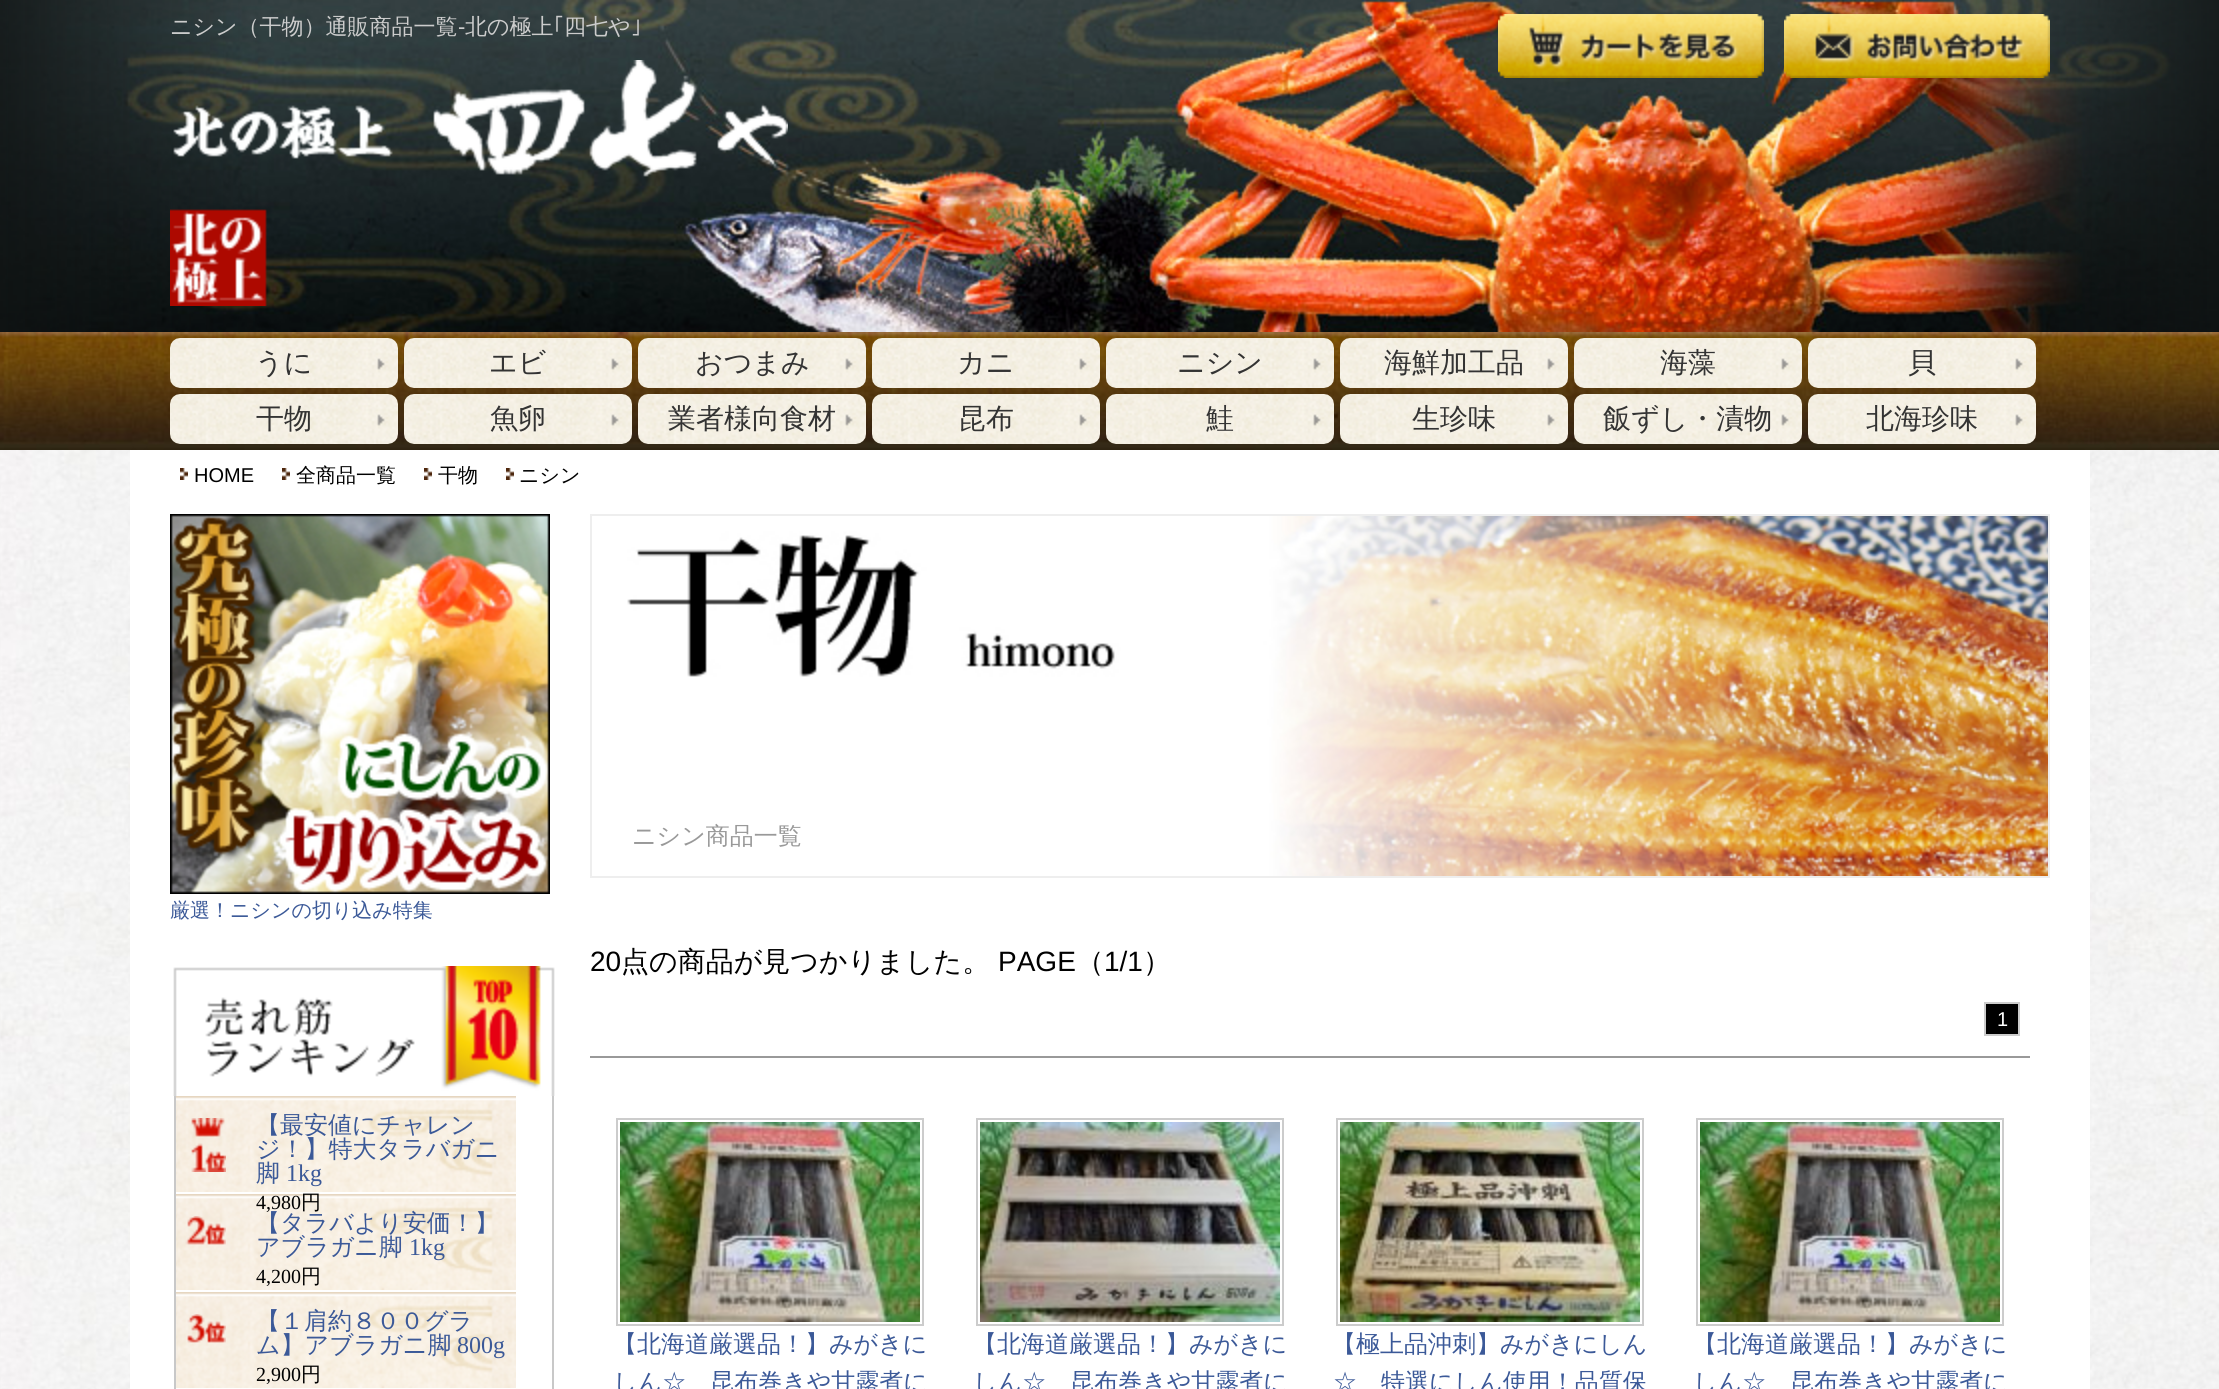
#include <cairo/cairo.h>
#include <math.h>
#include <stddef.h>

typedef struct { double x, y; const char *s; } line_t;
static cairo_t *cr;

static void rgb(unsigned color)
{
	cairo_set_source_rgb(cr, (color >> 16) / 255.0, (color >> 8 & 255) / 255.0, (color & 255) / 255.0);
}

static void image(const char *path, double x, double y, double w, double h)
{
	cairo_surface_t *image = cairo_image_surface_create_from_png(path);
	cairo_save(cr);
	cairo_set_source_surface(cr, image, x, y);
	cairo_rectangle(cr, x, y, w, h);
	cairo_fill(cr);
	cairo_restore(cr);
	cairo_surface_destroy(image);
}

int main(void) {
	cairo_surface_t *surface = cairo_image_surface_create(CAIRO_FORMAT_RGB24, 2219, 1389);
	cr = cairo_create(surface);
	cairo_font_options_t *options = cairo_font_options_create();
	cairo_font_options_set_hint_metrics(options, CAIRO_HINT_METRICS_OFF);
	cairo_font_options_set_hint_style(options, CAIRO_HINT_STYLE_NONE);
	cairo_set_font_options(cr, options);
	cairo_set_miter_limit(cr, 4);
	rgb(0xffffff);
	cairo_paint(cr);
	image("img/1.png", 0, 450, 2219, 939);
	rgb(0x101414);
	cairo_rectangle(cr, 0, 0, 2219, 332);
	cairo_fill(cr);
	image("img/2.png", 0, 0, 2219, 332);
	image("img/3.png", 1498, 14, 266, 64);
	image("img/4.png", 1784, 14, 266, 64);
	image("img/5.png", 170, 60, 618, 246);
	image("img/6.png", 0, 332, 2219, 118);
	image("img/7.png", 170, 338, 228, 50);
	image("img/8.png", 404, 338, 228, 50);
	image("img/9.png", 638, 338, 228, 50);
	image("img/10.png", 872, 338, 228, 50);
	image("img/11.png", 1106, 338, 228, 50);
	image("img/12.png", 1340, 338, 228, 50);
	image("img/13.png", 1574, 338, 228, 50);
	image("img/14.png", 1808, 338, 228, 50);
	image("img/15.png", 170, 394, 228, 50);
	image("img/16.png", 404, 394, 228, 50);
	image("img/17.png", 638, 394, 228, 50);
	image("img/18.png", 872, 394, 228, 50);
	image("img/19.png", 1106, 394, 228, 50);
	image("img/20.png", 1340, 394, 228, 50);
	image("img/21.png", 1574, 394, 228, 50);
	image("img/22.png", 1808, 394, 228, 50);
	rgb(0xffffff);
	cairo_rectangle(cr, 130, 450, 1960, 939);
	cairo_fill(cr);
	image("img/23.png", 180, 468, 8, 12);
	image("img/23.png", 282, 468, 8, 12);
	image("img/23.png", 424, 468, 8, 12);
	image("img/23.png", 506, 468, 8, 12);
	image("img/24.png", 170, 514, 380, 380);
	image("img/25.png", 173, 966, 382, 130);
	rgb(0xc8c8c8);
	cairo_rectangle(cr, 552, 1096, 2, 293);
	cairo_fill(cr);
	cairo_rectangle(cr, 174, 1096, 2, 293);
	cairo_fill(cr);
	image("img/26.png", 176, 1096, 340, 96);
	image("img/27.png", 191, 1118, 35, 54);
	image("img/26.png", 176, 1194, 340, 96);
	image("img/28.png", 185, 1216, 41, 29);
	image("img/26.png", 176, 1292, 340, 96);
	image("img/29.png", 187, 1314, 39, 29);
	image("img/30.png", 627, 516, 1421, 360);
	cairo_rectangle(cr, 591, 515, 1458, 362);
	rgb(0xeeeeee);
	cairo_stroke(cr);
	rgb(0x999999);
	cairo_rectangle(cr, 590, 1056, 1440, 2);
	cairo_fill(cr);
	rgb(0x000000);
	cairo_rectangle(cr, 1985, 1003, 34, 32);
	cairo_fill_preserve(cr);
	rgb(0xcccccc);
	cairo_stroke(cr);
	cairo_rectangle(cr, 617, 1119, 306, 206);
	cairo_stroke(cr);
	image("img/31.png", 620, 1122, 300, 200);
	cairo_rectangle(cr, 977, 1119, 306, 206);
	cairo_stroke(cr);
	image("img/32.png", 980, 1122, 300, 200);
	cairo_rectangle(cr, 1337, 1119, 306, 206);
	cairo_stroke(cr);
	image("img/33.png", 1340, 1122, 300, 200);
	cairo_rectangle(cr, 1697, 1119, 306, 206);
	cairo_stroke(cr);
	image("img/31.png", 1700, 1122, 300, 200);
	cairo_select_font_face(cr, "WenQuanYi Zen Hei Medium", CAIRO_FONT_SLANT_NORMAL, CAIRO_FONT_WEIGHT_NORMAL);
	cairo_set_font_size(cr, 22);
	cairo_move_to(cr, 170, 34);
	cairo_show_text(cr, "ニシン（干物）通販商品一覧");
	cairo_select_font_face(cr, "Liberation Sans", CAIRO_FONT_SLANT_NORMAL, CAIRO_FONT_WEIGHT_NORMAL);
	cairo_move_to(cr, 458, 34);
	cairo_show_text(cr, "-");
	cairo_select_font_face(cr, "WenQuanYi Zen Hei Medium", CAIRO_FONT_SLANT_NORMAL, CAIRO_FONT_WEIGHT_NORMAL);
	cairo_move_to(cr, 465, 34);
	cairo_show_text(cr, "北の極上");
	cairo_select_font_face(cr, "IPAPGothic", CAIRO_FONT_SLANT_NORMAL, CAIRO_FONT_WEIGHT_NORMAL);
	cairo_move_to(cr, 553, 34);
	cairo_show_text(cr, "｢");
	cairo_select_font_face(cr, "WenQuanYi Zen Hei Medium", CAIRO_FONT_SLANT_NORMAL, CAIRO_FONT_WEIGHT_NORMAL);
	cairo_move_to(cr, 564, 34);
	cairo_show_text(cr, "四七や");
	cairo_select_font_face(cr, "IPAPGothic", CAIRO_FONT_SLANT_NORMAL, CAIRO_FONT_WEIGHT_NORMAL);
	cairo_move_to(cr, 631, 34);
	cairo_show_text(cr, "｣");
	cairo_select_font_face(cr, "WenQuanYi Zen Hei Medium", CAIRO_FONT_SLANT_NORMAL, CAIRO_FONT_WEIGHT_NORMAL);
	cairo_set_font_size(cr, 28);
	rgb(0x333333);
	{
		static const line_t items[] = {
			{255, 372, "うに"},
			{489, 372, "エビ"},
			{695, 372, "おつまみ"},
			{957, 372, "カニ"},
			{1177, 372, "ニシン"},
			{1384, 372, "海鮮加工品"},
			{1660, 372, "海藻"},
			{1908, 372, "貝"},
			{256, 428, "干物"},
			{490, 428, "魚卵"},
			{668, 428, "業者様向食材"},
			{958, 428, "昆布"},
			{1206, 428, "鮭"},
			{1412, 428, "生珍味"},
			{1603, 428, "飯ずし・漬物"},
			{1866, 428, "北海珍味"},
		};
		for (size_t i = 0; i < sizeof items / sizeof *items; i++) {
			cairo_move_to(cr, items[i].x, items[i].y);
			cairo_show_text(cr, items[i].s);
		}
	}
	cairo_select_font_face(cr, "Liberation Sans", CAIRO_FONT_SLANT_NORMAL, CAIRO_FONT_WEIGHT_NORMAL);
	cairo_set_font_size(cr, 20);
	rgb(0x000000);
	cairo_move_to(cr, 194, 482);
	cairo_show_text(cr, "HOME");
	cairo_select_font_face(cr, "WenQuanYi Zen Hei Medium", CAIRO_FONT_SLANT_NORMAL, CAIRO_FONT_WEIGHT_NORMAL);
	{
		static const line_t items[] = {
			{296, 482, "全商品一覧"},
			{438, 482, "干物"},
			{519, 482, "ニシン"},
		};
		for (size_t i = 0; i < sizeof items / sizeof *items; i++) {
			cairo_move_to(cr, items[i].x, items[i].y);
			cairo_show_text(cr, items[i].s);
		}
	}
	rgb(0x3b5998);
	cairo_move_to(cr, 170, 917);
	cairo_show_text(cr, "厳選！ニシンの切り込み特集");
	cairo_set_font_size(cr, 24);
	{
		static const line_t items[] = {
			{256, 1133, "【最安値にチャレン"},
			{256, 1157, "ジ！】特大タラバガニ"},
			{256, 1181, "脚"},
		};
		for (size_t i = 0; i < sizeof items / sizeof *items; i++) {
			cairo_move_to(cr, items[i].x, items[i].y);
			cairo_show_text(cr, items[i].s);
		}
	}
	cairo_select_font_face(cr, "Liberation Serif", CAIRO_FONT_SLANT_NORMAL, CAIRO_FONT_WEIGHT_NORMAL);
	cairo_move_to(cr, 286, 1181);
	cairo_show_text(cr, "1kg");
	cairo_set_font_size(cr, 20);
	rgb(0x000000);
	cairo_move_to(cr, 256, 1209);
	cairo_show_text(cr, "4,980");
	cairo_select_font_face(cr, "WenQuanYi Zen Hei Medium", CAIRO_FONT_SLANT_NORMAL, CAIRO_FONT_WEIGHT_NORMAL);
	cairo_move_to(cr, 301, 1209);
	cairo_show_text(cr, "円");
	cairo_set_font_size(cr, 24);
	rgb(0x3b5998);
	cairo_move_to(cr, 256, 1231);
	cairo_show_text(cr, "【タラバより安価！】");
	cairo_move_to(cr, 256, 1255);
	cairo_show_text(cr, "アブラガニ脚");
	cairo_select_font_face(cr, "Liberation Serif", CAIRO_FONT_SLANT_NORMAL, CAIRO_FONT_WEIGHT_NORMAL);
	cairo_move_to(cr, 409, 1255);
	cairo_show_text(cr, "1kg");
	cairo_set_font_size(cr, 20);
	rgb(0x000000);
	cairo_move_to(cr, 256, 1283);
	cairo_show_text(cr, "4,200");
	cairo_select_font_face(cr, "WenQuanYi Zen Hei Medium", CAIRO_FONT_SLANT_NORMAL, CAIRO_FONT_WEIGHT_NORMAL);
	cairo_move_to(cr, 301, 1283);
	cairo_show_text(cr, "円");
	cairo_set_font_size(cr, 24);
	rgb(0x3b5998);
	cairo_move_to(cr, 256, 1329);
	cairo_show_text(cr, "【１肩約８００グラ");
	cairo_move_to(cr, 256, 1353);
	cairo_show_text(cr, "ム】アブラガニ脚");
	cairo_select_font_face(cr, "Liberation Serif", CAIRO_FONT_SLANT_NORMAL, CAIRO_FONT_WEIGHT_NORMAL);
	cairo_move_to(cr, 457, 1353);
	cairo_show_text(cr, "800g");
	cairo_set_font_size(cr, 20);
	rgb(0x000000);
	cairo_move_to(cr, 256, 1381);
	cairo_show_text(cr, "2,900");
	cairo_select_font_face(cr, "WenQuanYi Zen Hei Medium", CAIRO_FONT_SLANT_NORMAL, CAIRO_FONT_WEIGHT_NORMAL);
	cairo_move_to(cr, 301, 1381);
	cairo_show_text(cr, "円");
	cairo_set_font_size(cr, 24);
	rgb(0x999999);
	cairo_move_to(cr, 632, 844);
	cairo_show_text(cr, "ニシン商品一覧");
	cairo_select_font_face(cr, "Liberation Sans", CAIRO_FONT_SLANT_NORMAL, CAIRO_FONT_WEIGHT_NORMAL);
	cairo_set_font_size(cr, 28);
	rgb(0x000000);
	cairo_move_to(cr, 590, 971);
	cairo_show_text(cr, "20");
	cairo_select_font_face(cr, "WenQuanYi Zen Hei Medium", CAIRO_FONT_SLANT_NORMAL, CAIRO_FONT_WEIGHT_NORMAL);
	cairo_move_to(cr, 621, 971);
	cairo_show_text(cr, "点の商品が見つかりました。");
	cairo_select_font_face(cr, "Liberation Sans", CAIRO_FONT_SLANT_NORMAL, CAIRO_FONT_WEIGHT_NORMAL);
	cairo_move_to(cr, 998, 971);
	cairo_show_text(cr, "PAGE");
	cairo_select_font_face(cr, "WenQuanYi Zen Hei Medium", CAIRO_FONT_SLANT_NORMAL, CAIRO_FONT_WEIGHT_NORMAL);
	cairo_move_to(cr, 1076, 971);
	cairo_show_text(cr, "（");
	cairo_select_font_face(cr, "Liberation Sans", CAIRO_FONT_SLANT_NORMAL, CAIRO_FONT_WEIGHT_NORMAL);
	cairo_move_to(cr, 1104, 971);
	cairo_show_text(cr, "1/1");
	cairo_select_font_face(cr, "WenQuanYi Zen Hei Medium", CAIRO_FONT_SLANT_NORMAL, CAIRO_FONT_WEIGHT_NORMAL);
	cairo_move_to(cr, 1143, 971);
	cairo_show_text(cr, "）");
	cairo_select_font_face(cr, "Liberation Sans", CAIRO_FONT_SLANT_NORMAL, CAIRO_FONT_WEIGHT_NORMAL);
	cairo_set_font_size(cr, 20);
	rgb(0xffffff);
	cairo_move_to(cr, 1997, 1026);
	cairo_show_text(cr, "1");
	cairo_select_font_face(cr, "WenQuanYi Zen Hei Medium", CAIRO_FONT_SLANT_NORMAL, CAIRO_FONT_WEIGHT_NORMAL);
	cairo_set_font_size(cr, 24);
	rgb(0x3b5998);
	{
		static const line_t items[] = {
			{613, 1352, "【北海道厳選品！】みがきに"},
			{613, 1390, "しん☆　昆布巻きや甘露煮に"},
			{973, 1352, "【北海道厳選品！】みがきに"},
			{973, 1390, "しん☆　昆布巻きや甘露煮に"},
			{1332, 1352, "【極上品沖刺】みがきにしん"},
			{1333, 1390, "☆　特選にしん使用！品質保"},
			{1693, 1352, "【北海道厳選品！】みがきに"},
			{1693, 1390, "しん☆　昆布巻きや甘露煮に"},
		};
		for (size_t i = 0; i < sizeof items / sizeof *items; i++) {
			cairo_move_to(cr, items[i].x, items[i].y);
			cairo_show_text(cr, items[i].s);
		}
	}
	cairo_surface_write_to_png(surface, "page.png");
	cairo_font_options_destroy(options);
	cairo_destroy(cr);
	cairo_surface_destroy(surface);
	return 0;
}
